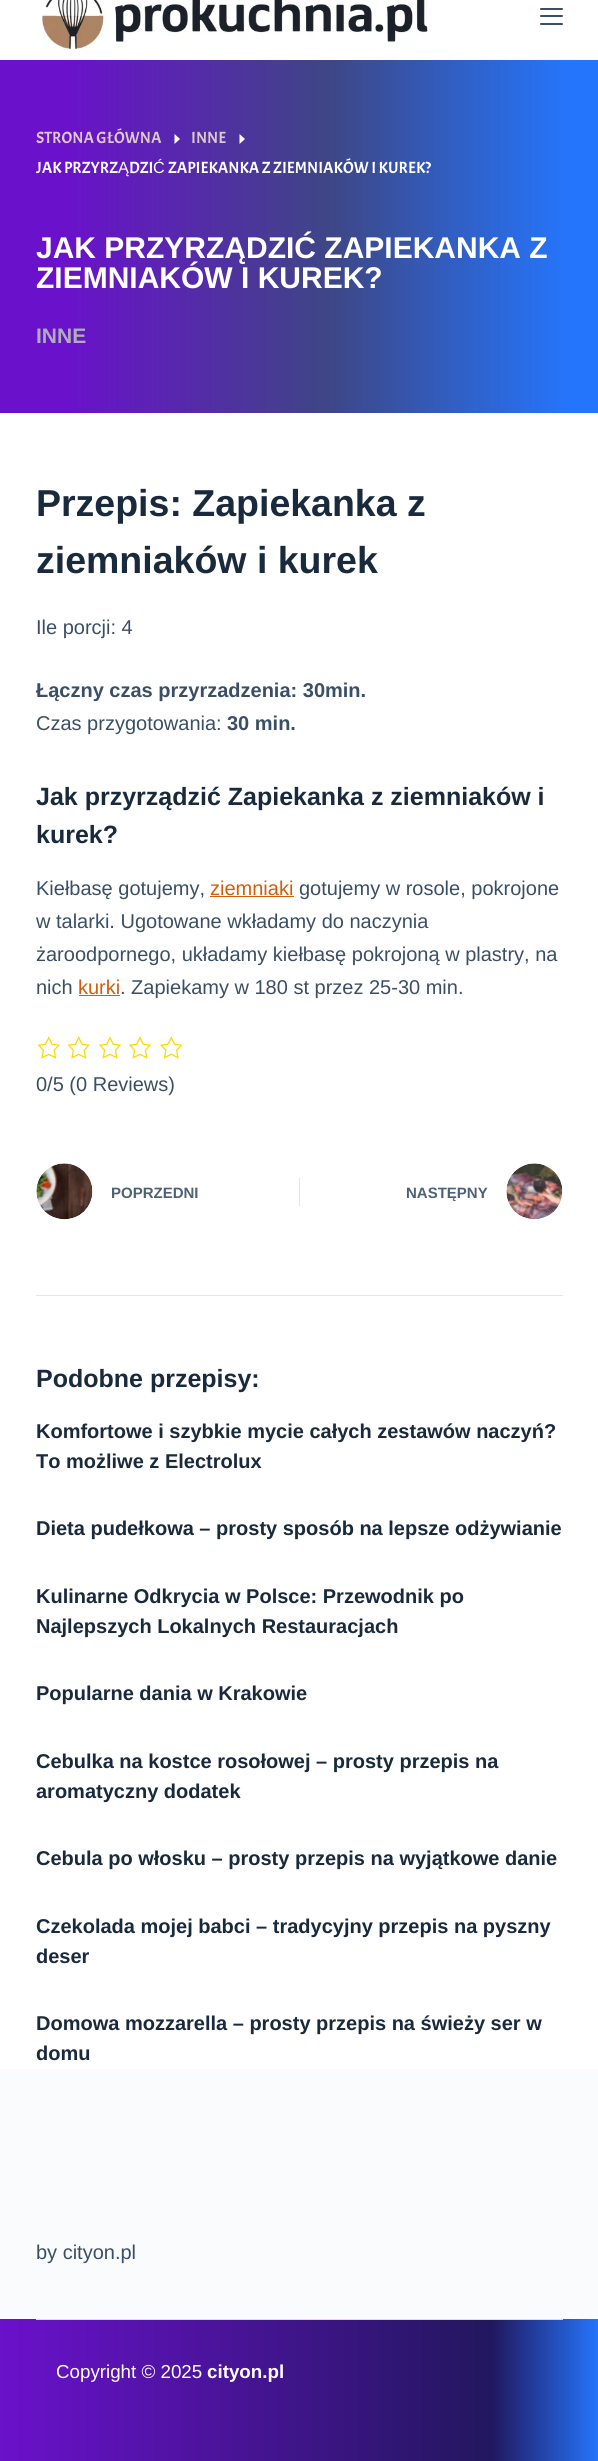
#include <cairo/cairo.h>
#include <math.h>
#include <stddef.h>

typedef struct { double x, y; const char *s; } line_t;
static cairo_t *cr;

static void rgb(unsigned color)
{
	cairo_set_source_rgb(cr, (color >> 16) / 255.0, (color >> 8 & 255) / 255.0, (color & 255) / 255.0);
}

static void rrect(double x, double y, double w, double h, double r)
{
	cairo_new_sub_path(cr);
	cairo_arc(cr, x + w - r, y + h - r, r, 0, M_PI / 2);
	cairo_arc(cr, x + r, y + h - r, r, M_PI / 2, M_PI);
	cairo_arc(cr, x + r, y + r, r, M_PI, 1.5 * M_PI);
	cairo_arc(cr, x + w - r, y + r, r, 1.5 * M_PI, 2 * M_PI);
	cairo_close_path(cr);
}

static void image(const char *path, double x, double y, double w, double h)
{
	cairo_surface_t *image = cairo_image_surface_create_from_png(path);
	cairo_save(cr);
	cairo_set_source_surface(cr, image, x, y);
	cairo_rectangle(cr, x, y, w, h);
	cairo_fill(cr);
	cairo_restore(cr);
	cairo_surface_destroy(image);
}

int main(void) {
	cairo_surface_t *surface = cairo_image_surface_create(CAIRO_FORMAT_RGB24, 598, 2461);
	cr = cairo_create(surface);
	cairo_font_options_t *options = cairo_font_options_create();
	cairo_font_options_set_hint_metrics(options, CAIRO_HINT_METRICS_OFF);
	cairo_font_options_set_hint_style(options, CAIRO_HINT_STYLE_NONE);
	cairo_set_font_options(cr, options);
	cairo_set_miter_limit(cr, 4);
	cairo_pattern_t *gradient;
	rgb(0xffffff);
	cairo_paint(cr);
	image("img/1.png", 41, 0, 387, 50);
	rgb(0x3a4f66);
	rrect(540, 8, 23, 2, 1);
	cairo_fill(cr);
	rrect(540, 15, 23, 2, 1);
	cairo_fill(cr);
	rrect(540, 23, 23, 2, 1);
	cairo_fill(cr);
	gradient = cairo_pattern_create_linear(0, 236, 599, 236);
	cairo_pattern_add_color_stop_rgba(gradient, 0.11, 0.416, 0.067, 0.796, 1);
	cairo_pattern_add_color_stop_rgba(gradient, 0.55, 0.243, 0.275, 0.522, 1);
	cairo_pattern_add_color_stop_rgba(gradient, 0.95, 0.145, 0.459, 0.988, 1);
	cairo_set_source(cr, gradient);
	cairo_pattern_destroy(gradient);
	cairo_rectangle(cr, 0, 60, 598, 353);
	cairo_fill(cr);
	rgb(0xfffbfb);
	cairo_new_path(cr);
	cairo_move_to(cr, 174.5, 134);
	cairo_line_to(cr, 180, 139);
	cairo_line_to(cr, 174.5, 144);
	cairo_close_path(cr);
	cairo_fill(cr);
	cairo_new_path(cr);
	cairo_move_to(cr, 239.5, 134);
	cairo_line_to(cr, 245, 139);
	cairo_line_to(cr, 239.5, 144);
	cairo_close_path(cr);
	cairo_fill(cr);
	rgb(0xd35d09);
	cairo_rectangle(cr, 210, 896, 84, 1);
	cairo_fill(cr);
	cairo_rectangle(cr, 79, 995, 41, 1);
	cairo_fill(cr);
	image("img/2.png", 37, 1036, 23, 23);
	image("img/2.png", 67, 1036, 23, 23);
	image("img/3.png", 98, 1036, 24, 23);
	image("img/3.png", 128, 1036, 24, 23);
	image("img/4.png", 160, 1036, 23, 23);
	image("img/5.png", 36, 1163, 57, 57);
	rgb(0xe1e8ed);
	cairo_rectangle(cr, 299, 1178, 1, 28);
	cairo_fill(cr);
	image("img/6.png", 506, 1163, 57, 57);
	cairo_rectangle(cr, 36, 1295, 527, 1);
	cairo_fill(cr);
	rgb(0xfafbfc);
	cairo_rectangle(cr, 0, 2069, 598, 250);
	cairo_fill(cr);
	gradient = cairo_pattern_create_linear(0, 2404, 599, 2404);
	cairo_pattern_add_color_stop_rgba(gradient, 0, 0.416, 0.067, 0.796, 1);
	cairo_pattern_add_color_stop_rgba(gradient, 0.82, 0.133, 0.09, 0.369, 1);
	cairo_pattern_add_color_stop_rgba(gradient, 1, 0.145, 0.459, 0.988, 1);
	cairo_set_source(cr, gradient);
	cairo_pattern_destroy(gradient);
	cairo_rectangle(cr, 0, 2319, 598, 142);
	cairo_fill(cr);
	rgb(0xdddddd);
	cairo_rectangle(cr, 36, 2319, 527, 1);
	cairo_fill(cr);
	cairo_select_font_face(cr, "Acme", CAIRO_FONT_SLANT_NORMAL, CAIRO_FONT_WEIGHT_NORMAL);
	cairo_set_font_size(cr, 16.25);
	rgb(0xdec9c9);
	cairo_move_to(cr, 36, 143);
	cairo_show_text(cr, "STRONA GŁÓWNA");
	cairo_move_to(cr, 191, 143);
	cairo_show_text(cr, "INNE");
	rgb(0xffffff);
	cairo_move_to(cr, 36, 173);
	cairo_show_text(cr, "JAK PRZYRZ");
	cairo_select_font_face(cr, "Liberation Sans", CAIRO_FONT_SLANT_NORMAL, CAIRO_FONT_WEIGHT_NORMAL);
	cairo_move_to(cr, 118, 173);
	cairo_show_text(cr, "Ą");
	cairo_select_font_face(cr, "Acme", CAIRO_FONT_SLANT_NORMAL, CAIRO_FONT_WEIGHT_NORMAL);
	cairo_move_to(cr, 129, 173);
	cairo_show_text(cr, "DZI");
	cairo_select_font_face(cr, "Liberation Sans", CAIRO_FONT_SLANT_NORMAL, CAIRO_FONT_WEIGHT_NORMAL);
	cairo_move_to(cr, 153, 173);
	cairo_show_text(cr, "Ć");
	cairo_select_font_face(cr, "Acme", CAIRO_FONT_SLANT_NORMAL, CAIRO_FONT_WEIGHT_NORMAL);
	cairo_move_to(cr, 168, 173);
	cairo_show_text(cr, "ZAPIEKANKA Z ZIEMNIAKÓW I KUREK?");
	cairo_select_font_face(cr, "Liberation Sans", CAIRO_FONT_SLANT_NORMAL, CAIRO_FONT_WEIGHT_BOLD);
	cairo_set_font_size(cr, 30);
	cairo_move_to(cr, 36, 258);
	cairo_show_text(cr, "JAK PRZYRZĄDZIĆ ZAPIEKANKA Z");
	cairo_move_to(cr, 36, 288);
	cairo_show_text(cr, "ZIEMNIAKÓW I KUREK?");
	cairo_set_font_size(cr, 21);
	rgb(0xaeaeba);
	cairo_move_to(cr, 36, 343);
	cairo_show_text(cr, "INNE");
	cairo_set_font_size(cr, 37.5);
	rgb(0x192a3d);
	cairo_move_to(cr, 36, 516);
	cairo_show_text(cr, "Przepis: Zapiekanka z");
	cairo_move_to(cr, 36, 573);
	cairo_show_text(cr, "ziemniaków i kurek");
	cairo_select_font_face(cr, "Liberation Sans", CAIRO_FONT_SLANT_NORMAL, CAIRO_FONT_WEIGHT_NORMAL);
	cairo_set_font_size(cr, 20);
	rgb(0x3a4f66);
	cairo_move_to(cr, 36, 634);
	cairo_show_text(cr, "Ile porcji: 4");
	cairo_select_font_face(cr, "Liberation Sans", CAIRO_FONT_SLANT_NORMAL, CAIRO_FONT_WEIGHT_BOLD);
	cairo_move_to(cr, 36, 697);
	cairo_show_text(cr, "Łączny czas przyrzadzenia: 30min.");
	cairo_select_font_face(cr, "Liberation Sans", CAIRO_FONT_SLANT_NORMAL, CAIRO_FONT_WEIGHT_NORMAL);
	cairo_move_to(cr, 36, 730);
	cairo_show_text(cr, "Czas przygotowania:");
	cairo_select_font_face(cr, "Liberation Sans", CAIRO_FONT_SLANT_NORMAL, CAIRO_FONT_WEIGHT_BOLD);
	cairo_move_to(cr, 227, 730);
	cairo_show_text(cr, "30 min.");
	cairo_set_font_size(cr, 25);
	rgb(0x192a3d);
	cairo_move_to(cr, 36, 805);
	cairo_show_text(cr, "Jak przyrządzić Zapiekanka z ziemniaków i");
	cairo_move_to(cr, 36, 843);
	cairo_show_text(cr, "kurek?");
	cairo_select_font_face(cr, "Liberation Sans", CAIRO_FONT_SLANT_NORMAL, CAIRO_FONT_WEIGHT_NORMAL);
	cairo_set_font_size(cr, 20);
	rgb(0x3a4f66);
	cairo_move_to(cr, 36, 895);
	cairo_show_text(cr, "Kiełbasę gotujemy,");
	rgb(0xd35d09);
	cairo_move_to(cr, 210, 895);
	cairo_show_text(cr, "ziemniaki");
	rgb(0x3a4f66);
	{
		static const line_t items[] = {
			{299, 895, "gotujemy w rosole, pokrojone"},
			{36, 928, "w talarki. Ugotowane wkładamy do naczynia"},
			{36, 961, "żaroodpornego, układamy kiełbasę pokrojoną w plastry, na"},
			{36, 994, "nich"},
		};
		for (size_t i = 0; i < sizeof items / sizeof *items; i++) {
			cairo_move_to(cr, items[i].x, items[i].y);
			cairo_show_text(cr, items[i].s);
		}
	}
	rgb(0xd35d09);
	cairo_move_to(cr, 78, 994);
	cairo_show_text(cr, "kurki");
	rgb(0x3a4f66);
	cairo_move_to(cr, 120, 994);
	cairo_show_text(cr, ". Zapiekamy w 180 st przez 25-30 min.");
	cairo_move_to(cr, 36, 1091);
	cairo_show_text(cr, "0/5 (0 Reviews)");
	cairo_select_font_face(cr, "Liberation Sans", CAIRO_FONT_SLANT_NORMAL, CAIRO_FONT_WEIGHT_BOLD);
	cairo_set_font_size(cr, 15);
	rgb(0x4e6175);
	cairo_move_to(cr, 111, 1198);
	cairo_show_text(cr, "POPRZEDNI");
	cairo_move_to(cr, 406, 1198);
	cairo_show_text(cr, "NASTĘPNY");
	cairo_set_font_size(cr, 25);
	rgb(0x192a3d);
	cairo_move_to(cr, 36, 1387);
	cairo_show_text(cr, "Podobne przepisy:");
	cairo_set_font_size(cr, 20);
	{
		static const line_t items[] = {
			{36, 1438, "Komfortowe i szybkie mycie całych zestawów naczyń?"},
			{36, 1468, "To możliwe z Electrolux"},
			{36, 1535, "Dieta pudełkowa – prosty sposób na lepsze odżywianie"},
			{36, 1603, "Kulinarne Odkrycia w Polsce: Przewodnik po"},
			{36, 1633, "Najlepszych Lokalnych Restauracjach"},
			{36, 1700, "Popularne dania w Krakowie"},
			{36, 1768, "Cebulka na kostce rosołowej – prosty przepis na"},
			{36, 1798, "aromatyczny dodatek"},
			{36, 1865, "Cebula po włosku – prosty przepis na wyjątkowe danie"},
			{36, 1933, "Czekolada mojej babci – tradycyjny przepis na pyszny"},
			{36, 1963, "deser"},
			{36, 2030, "Domowa mozzarella – prosty przepis na świeży ser w"},
			{36, 2060, "domu"},
		};
		for (size_t i = 0; i < sizeof items / sizeof *items; i++) {
			cairo_move_to(cr, items[i].x, items[i].y);
			cairo_show_text(cr, items[i].s);
		}
	}
	cairo_select_font_face(cr, "Liberation Sans", CAIRO_FONT_SLANT_NORMAL, CAIRO_FONT_WEIGHT_NORMAL);
	rgb(0x3a4f66);
	cairo_move_to(cr, 36, 2259);
	cairo_show_text(cr, "by cityon.pl");
	cairo_set_font_size(cr, 18.75);
	rgb(0xffffff);
	cairo_move_to(cr, 56, 2378);
	cairo_show_text(cr, "Copyright © 2025");
	cairo_select_font_face(cr, "Liberation Sans", CAIRO_FONT_SLANT_NORMAL, CAIRO_FONT_WEIGHT_BOLD);
	cairo_move_to(cr, 207, 2378);
	cairo_show_text(cr, "cityon.pl");
	cairo_surface_write_to_png(surface, "page.png");
	cairo_font_options_destroy(options);
	cairo_destroy(cr);
	cairo_surface_destroy(surface);
	return 0;
}
